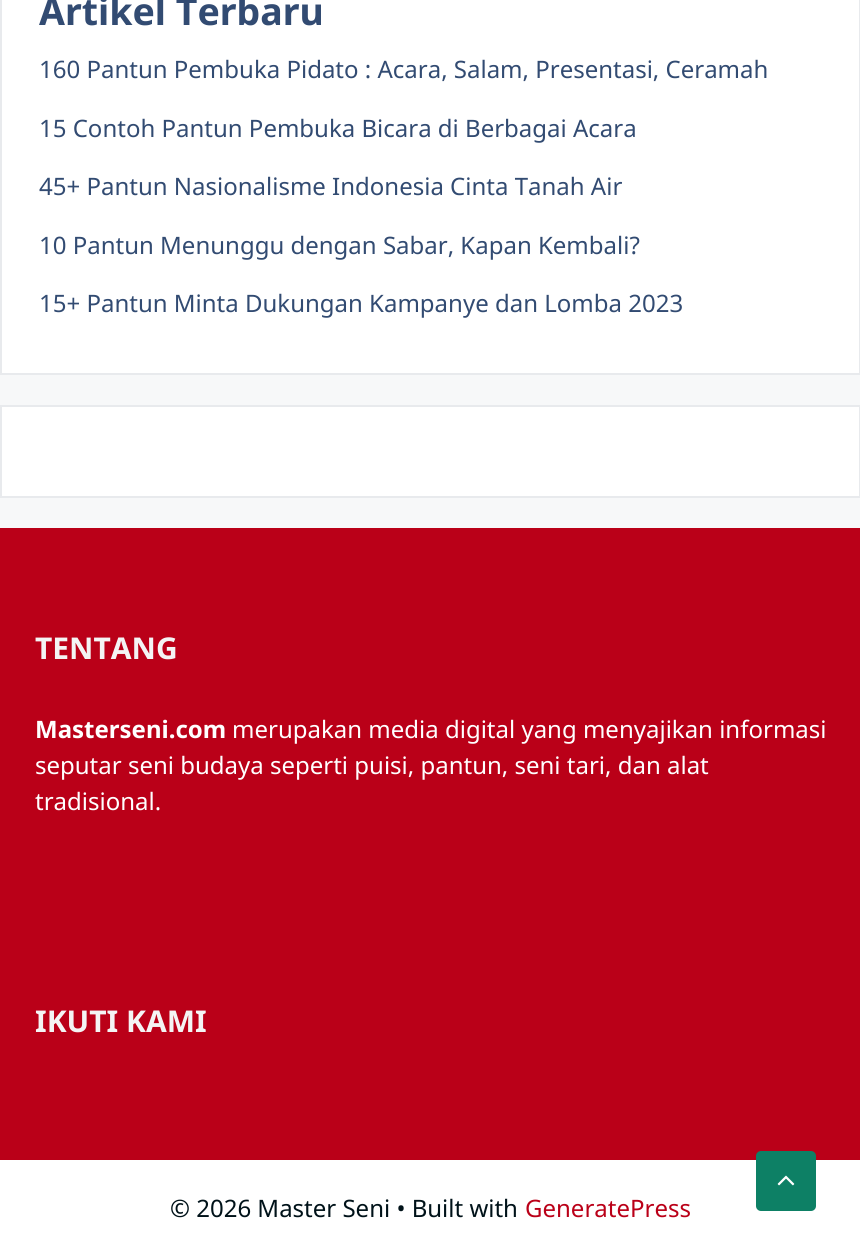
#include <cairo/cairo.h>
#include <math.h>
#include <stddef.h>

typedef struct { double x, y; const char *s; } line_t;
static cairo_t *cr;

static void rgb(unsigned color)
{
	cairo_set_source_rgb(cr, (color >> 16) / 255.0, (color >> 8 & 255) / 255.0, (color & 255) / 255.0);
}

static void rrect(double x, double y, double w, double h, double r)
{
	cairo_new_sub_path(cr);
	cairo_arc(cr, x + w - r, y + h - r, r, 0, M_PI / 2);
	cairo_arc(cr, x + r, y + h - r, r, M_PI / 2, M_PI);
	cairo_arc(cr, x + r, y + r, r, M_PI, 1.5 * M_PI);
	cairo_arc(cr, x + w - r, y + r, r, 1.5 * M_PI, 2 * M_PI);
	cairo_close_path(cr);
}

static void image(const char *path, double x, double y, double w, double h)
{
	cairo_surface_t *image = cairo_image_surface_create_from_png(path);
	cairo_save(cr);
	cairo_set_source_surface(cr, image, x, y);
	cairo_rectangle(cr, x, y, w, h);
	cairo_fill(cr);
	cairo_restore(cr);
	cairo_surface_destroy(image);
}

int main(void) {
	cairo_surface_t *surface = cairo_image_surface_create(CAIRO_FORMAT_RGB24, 860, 1255);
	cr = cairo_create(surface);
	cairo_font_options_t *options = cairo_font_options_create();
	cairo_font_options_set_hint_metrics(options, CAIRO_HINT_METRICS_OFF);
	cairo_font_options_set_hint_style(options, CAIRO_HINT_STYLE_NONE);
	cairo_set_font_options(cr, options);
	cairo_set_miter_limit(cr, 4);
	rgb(0xf7f8f9);
	cairo_paint(cr);
	rgb(0xffffff);
	cairo_rectangle(cr, 1, -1, 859, 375);
	cairo_fill_preserve(cr);
	rgb(0xe8eaed);
	cairo_stroke(cr);
	rgb(0xffffff);
	cairo_rectangle(cr, 1, 406, 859, 91);
	cairo_fill_preserve(cr);
	rgb(0xe8eaed);
	cairo_stroke(cr);
	rgb(0xba0018);
	cairo_rectangle(cr, 0, 528, 860, 632);
	cairo_fill(cr);
	rgb(0xffffff);
	cairo_rectangle(cr, 0, 1160, 860, 95);
	cairo_fill(cr);
	rgb(0x0d8065);
	rrect(756, 1151, 60, 60, 5);
	cairo_fill(cr);
	image("img/1.png", 777, 1175, 18, 11);
	cairo_select_font_face(cr, "Noto Sans", CAIRO_FONT_SLANT_NORMAL, CAIRO_FONT_WEIGHT_BOLD);
	cairo_set_font_size(cr, 37.5);
	rgb(0x324b72);
	cairo_move_to(cr, 39, 25);
	cairo_show_text(cr, "Artikel Terbaru");
	cairo_select_font_face(cr, "Noto Sans", CAIRO_FONT_SLANT_NORMAL, CAIRO_FONT_WEIGHT_NORMAL);
	cairo_set_font_size(cr, 24);
	{
		static const line_t items[] = {
			{39, 78, "160 Pantun Pembuka Pidato : Acara, Salam, Presentasi, Ceramah"},
			{39, 137, "15 Contoh Pantun Pembuka Bicara di Berbagai Acara"},
			{39, 195, "45+ Pantun Nasionalisme Indonesia Cinta Tanah Air"},
			{39, 254, "10 Pantun Menunggu dengan Sabar, Kapan Kembali?"},
			{39, 312, "15+ Pantun Minta Dukungan Kampanye dan Lomba 2023"},
		};
		for (size_t i = 0; i < sizeof items / sizeof *items; i++) {
			cairo_move_to(cr, items[i].x, items[i].y);
			cairo_show_text(cr, items[i].s);
		}
	}
	cairo_select_font_face(cr, "Noto Sans", CAIRO_FONT_SLANT_NORMAL, CAIRO_FONT_WEIGHT_BOLD);
	cairo_set_font_size(cr, 30);
	rgb(0xf4f4f4);
	cairo_move_to(cr, 35, 659);
	cairo_show_text(cr, "TENTANG");
	cairo_set_font_size(cr, 24);
	rgb(0xffffff);
	cairo_move_to(cr, 35, 738);
	cairo_show_text(cr, "Masterseni.com");
	cairo_select_font_face(cr, "Noto Sans", CAIRO_FONT_SLANT_NORMAL, CAIRO_FONT_WEIGHT_NORMAL);
	{
		static const line_t items[] = {
			{232, 738, "merupakan media digital yang menyajikan informasi"},
			{35, 774, "seputar seni budaya seperti puisi, pantun, seni tari, dan alat"},
			{35, 810, "tradisional."},
		};
		for (size_t i = 0; i < sizeof items / sizeof *items; i++) {
			cairo_move_to(cr, items[i].x, items[i].y);
			cairo_show_text(cr, items[i].s);
		}
	}
	cairo_select_font_face(cr, "Noto Sans", CAIRO_FONT_SLANT_NORMAL, CAIRO_FONT_WEIGHT_BOLD);
	cairo_set_font_size(cr, 30);
	rgb(0xf4f4f4);
	cairo_move_to(cr, 35, 1032);
	cairo_show_text(cr, "IKUTI KAMI");
	cairo_select_font_face(cr, "Noto Sans", CAIRO_FONT_SLANT_NORMAL, CAIRO_FONT_WEIGHT_NORMAL);
	cairo_set_font_size(cr, 24);
	rgb(0x001219);
	cairo_move_to(cr, 170, 1217);
	cairo_show_text(cr, "© 2026 Master Seni • Built with");
	rgb(0xba0018);
	cairo_move_to(cr, 525, 1217);
	cairo_show_text(cr, "GeneratePress");
	cairo_surface_write_to_png(surface, "page.png");
	cairo_font_options_destroy(options);
	cairo_destroy(cr);
	cairo_surface_destroy(surface);
	return 0;
}
